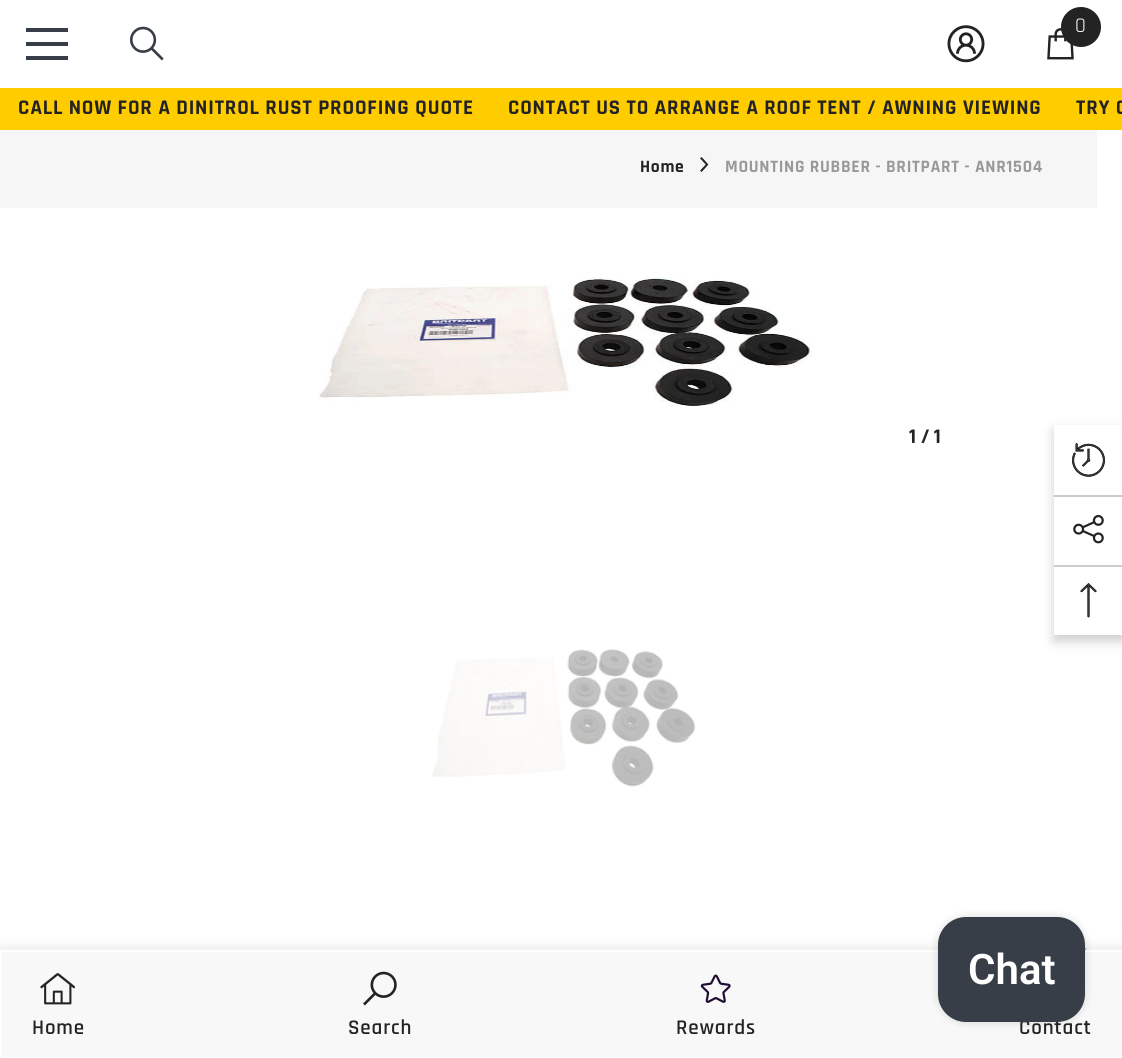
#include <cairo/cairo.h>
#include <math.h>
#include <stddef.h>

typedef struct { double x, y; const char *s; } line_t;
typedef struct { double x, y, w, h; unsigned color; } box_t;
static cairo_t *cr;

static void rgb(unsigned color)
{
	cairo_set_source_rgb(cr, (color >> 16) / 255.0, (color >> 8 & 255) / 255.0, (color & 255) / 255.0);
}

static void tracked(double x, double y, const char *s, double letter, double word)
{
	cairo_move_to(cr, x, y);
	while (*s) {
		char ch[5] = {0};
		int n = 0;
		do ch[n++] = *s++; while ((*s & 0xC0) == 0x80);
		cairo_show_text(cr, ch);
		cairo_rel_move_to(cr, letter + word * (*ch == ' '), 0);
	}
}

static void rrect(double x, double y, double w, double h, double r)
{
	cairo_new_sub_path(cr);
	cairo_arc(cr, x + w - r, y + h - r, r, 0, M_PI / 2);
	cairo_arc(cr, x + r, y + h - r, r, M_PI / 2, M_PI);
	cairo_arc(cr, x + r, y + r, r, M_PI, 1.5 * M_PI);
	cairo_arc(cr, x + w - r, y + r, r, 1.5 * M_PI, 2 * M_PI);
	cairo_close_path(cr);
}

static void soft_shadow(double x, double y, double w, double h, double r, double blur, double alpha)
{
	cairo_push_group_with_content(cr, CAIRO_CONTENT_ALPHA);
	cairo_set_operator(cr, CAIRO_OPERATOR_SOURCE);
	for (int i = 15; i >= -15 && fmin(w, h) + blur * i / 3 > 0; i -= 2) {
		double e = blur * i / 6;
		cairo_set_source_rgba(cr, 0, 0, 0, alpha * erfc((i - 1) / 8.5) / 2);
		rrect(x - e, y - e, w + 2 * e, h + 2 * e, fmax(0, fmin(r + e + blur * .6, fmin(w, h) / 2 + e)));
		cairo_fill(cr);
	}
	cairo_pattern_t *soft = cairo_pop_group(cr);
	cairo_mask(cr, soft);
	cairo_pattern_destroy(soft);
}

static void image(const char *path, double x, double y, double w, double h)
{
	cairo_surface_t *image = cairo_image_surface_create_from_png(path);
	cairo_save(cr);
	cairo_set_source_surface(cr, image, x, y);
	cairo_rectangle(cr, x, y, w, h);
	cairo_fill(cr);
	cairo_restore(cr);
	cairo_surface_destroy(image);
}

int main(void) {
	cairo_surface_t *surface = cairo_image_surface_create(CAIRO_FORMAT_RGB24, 1122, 1058);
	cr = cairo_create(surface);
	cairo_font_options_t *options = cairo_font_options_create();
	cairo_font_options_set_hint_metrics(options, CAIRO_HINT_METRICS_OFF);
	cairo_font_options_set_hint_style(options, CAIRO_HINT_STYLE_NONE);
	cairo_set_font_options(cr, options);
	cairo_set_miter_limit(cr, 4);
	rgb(0xffffff);
	cairo_paint(cr);
	{
		static const box_t items[] = {
			{26, 42, 42, 4, 0x383e47},
			{26, 28, 42, 4, 0x383e47},
			{26, 56, 42, 4, 0x383e47},
		};
		for (size_t i = 0; i < sizeof items / sizeof *items; i++) {
			rgb(items[i].color);
			cairo_rectangle(cr, items[i].x, items[i].y, items[i].w, items[i].h);
			cairo_fill(cr);
		}
	}
	image("img/1.png", 129, 26, 35, 35);
	image("img/2.png", 947, 25, 38, 38);
	image("img/3.png", 1047, 28, 27, 32);
	rgb(0x232323);
	cairo_arc(cr, 1081, 27, 20, 0, 2 * M_PI);
	cairo_fill(cr);
	rgb(0xffcc00);
	cairo_rectangle(cr, 0, 88, 1122, 42);
	cairo_fill(cr);
	rgb(0xf6f6f6);
	cairo_rectangle(cr, 0, 130, 1097, 78);
	cairo_fill(cr);
	image("img/4.png", 700, 157, 9, 15);
	image("img/5.png", 319, 277, 493, 130);
	image("img/6.png", 432, 649, 264, 138);
	image("img/7.png", 1085, 947, 1, 3);
	rgb(0x000000);
	soft_shadow(0, 950, 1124, 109, 0, 8, 0.12);
	rgb(0xf8f8f8);
	cairo_rectangle(cr, 1, 951, 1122, 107);
	cairo_fill_preserve(cr);
	rgb(0xffffff);
	cairo_stroke(cr);
	image("img/8.png", 40, 973, 35, 32);
	image("img/9.png", 363, 971, 34, 35);
	image("img/10.png", 700, 974, 31, 29);
	rgb(0x000000);
	soft_shadow(1054, 431, 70, 210, 0, 6, 0.2);
	rgb(0xffffff);
	cairo_rectangle(cr, 1054, 425, 68, 210);
	cairo_fill(cr);
	image("img/11.png", 1072, 443, 33, 34);
	rgb(0xcccccc);
	cairo_rectangle(cr, 1054, 495, 68, 2);
	cairo_fill(cr);
	image("img/12.png", 1073, 514, 31, 30);
	cairo_rectangle(cr, 1054, 565, 68, 2);
	cairo_fill(cr);
	image("img/13.png", 1080, 583, 17, 35);
	rgb(0x000000);
	soft_shadow(938, 917, 147, 105, 28, 4.5, 0.15);
	cairo_select_font_face(cr, "Rajdhani", CAIRO_FONT_SLANT_NORMAL, CAIRO_FONT_WEIGHT_NORMAL);
	cairo_set_font_size(cr, 21);
	rgb(0xffffff);
	cairo_move_to(cr, 1075, 32);
	cairo_show_text(cr, "0");
	cairo_select_font_face(cr, "Rajdhani", CAIRO_FONT_SLANT_NORMAL, CAIRO_FONT_WEIGHT_BOLD);
	rgb(0x232323);
	{
		static const line_t items[] = {
			{18, 114, "CALL NOW FOR A DINITROL RUST PROOFING QUOTE"},
			{508, 114, "CONTACT US TO ARRANGE A ROOF TENT / AWNING VIEWING"},
			{1076, 114, "TRY O"},
		};
		for (size_t i = 0; i < sizeof items / sizeof *items; i++) {
			tracked(items[i].x, items[i].y, items[i].s, 0.85, 0);
		}
	}
	cairo_set_font_size(cr, 17.5);
	tracked(640, 172, "Home", 0.7, 0);
	rgb(0x999999);
	tracked(725, 172, "MOUNTING RUBBER - BRITPART - ANR1504", 0.7, 0);
	cairo_set_font_size(cr, 21);
	rgb(0x232323);
	cairo_move_to(cr, 909, 443);
	cairo_show_text(cr, "1 / 1");
	cairo_select_font_face(cr, "Rajdhani SemiBold", CAIRO_FONT_SLANT_NORMAL, CAIRO_FONT_WEIGHT_NORMAL);
	{
		static const line_t items[] = {
			{32, 1034, "Home"},
			{348, 1034, "Search"},
			{676, 1034, "Rewards"},
			{1019, 1034, "Contact"},
		};
		for (size_t i = 0; i < sizeof items / sizeof *items; i++) {
			tracked(items[i].x, items[i].y, items[i].s, 0.85, 0);
		}
	}
	rgb(0x383e47);
	rrect(938, 917, 147, 105, 28);
	cairo_fill(cr);
	cairo_select_font_face(cr, "Roboto SemiBold", CAIRO_FONT_SLANT_NORMAL, CAIRO_FONT_WEIGHT_NORMAL);
	cairo_set_font_size(cr, 42);
	rgb(0xffffff);
	cairo_move_to(cr, 968, 984);
	cairo_show_text(cr, "Chat");
	cairo_surface_write_to_png(surface, "page.png");
	cairo_font_options_destroy(options);
	cairo_destroy(cr);
	cairo_surface_destroy(surface);
	return 0;
}
